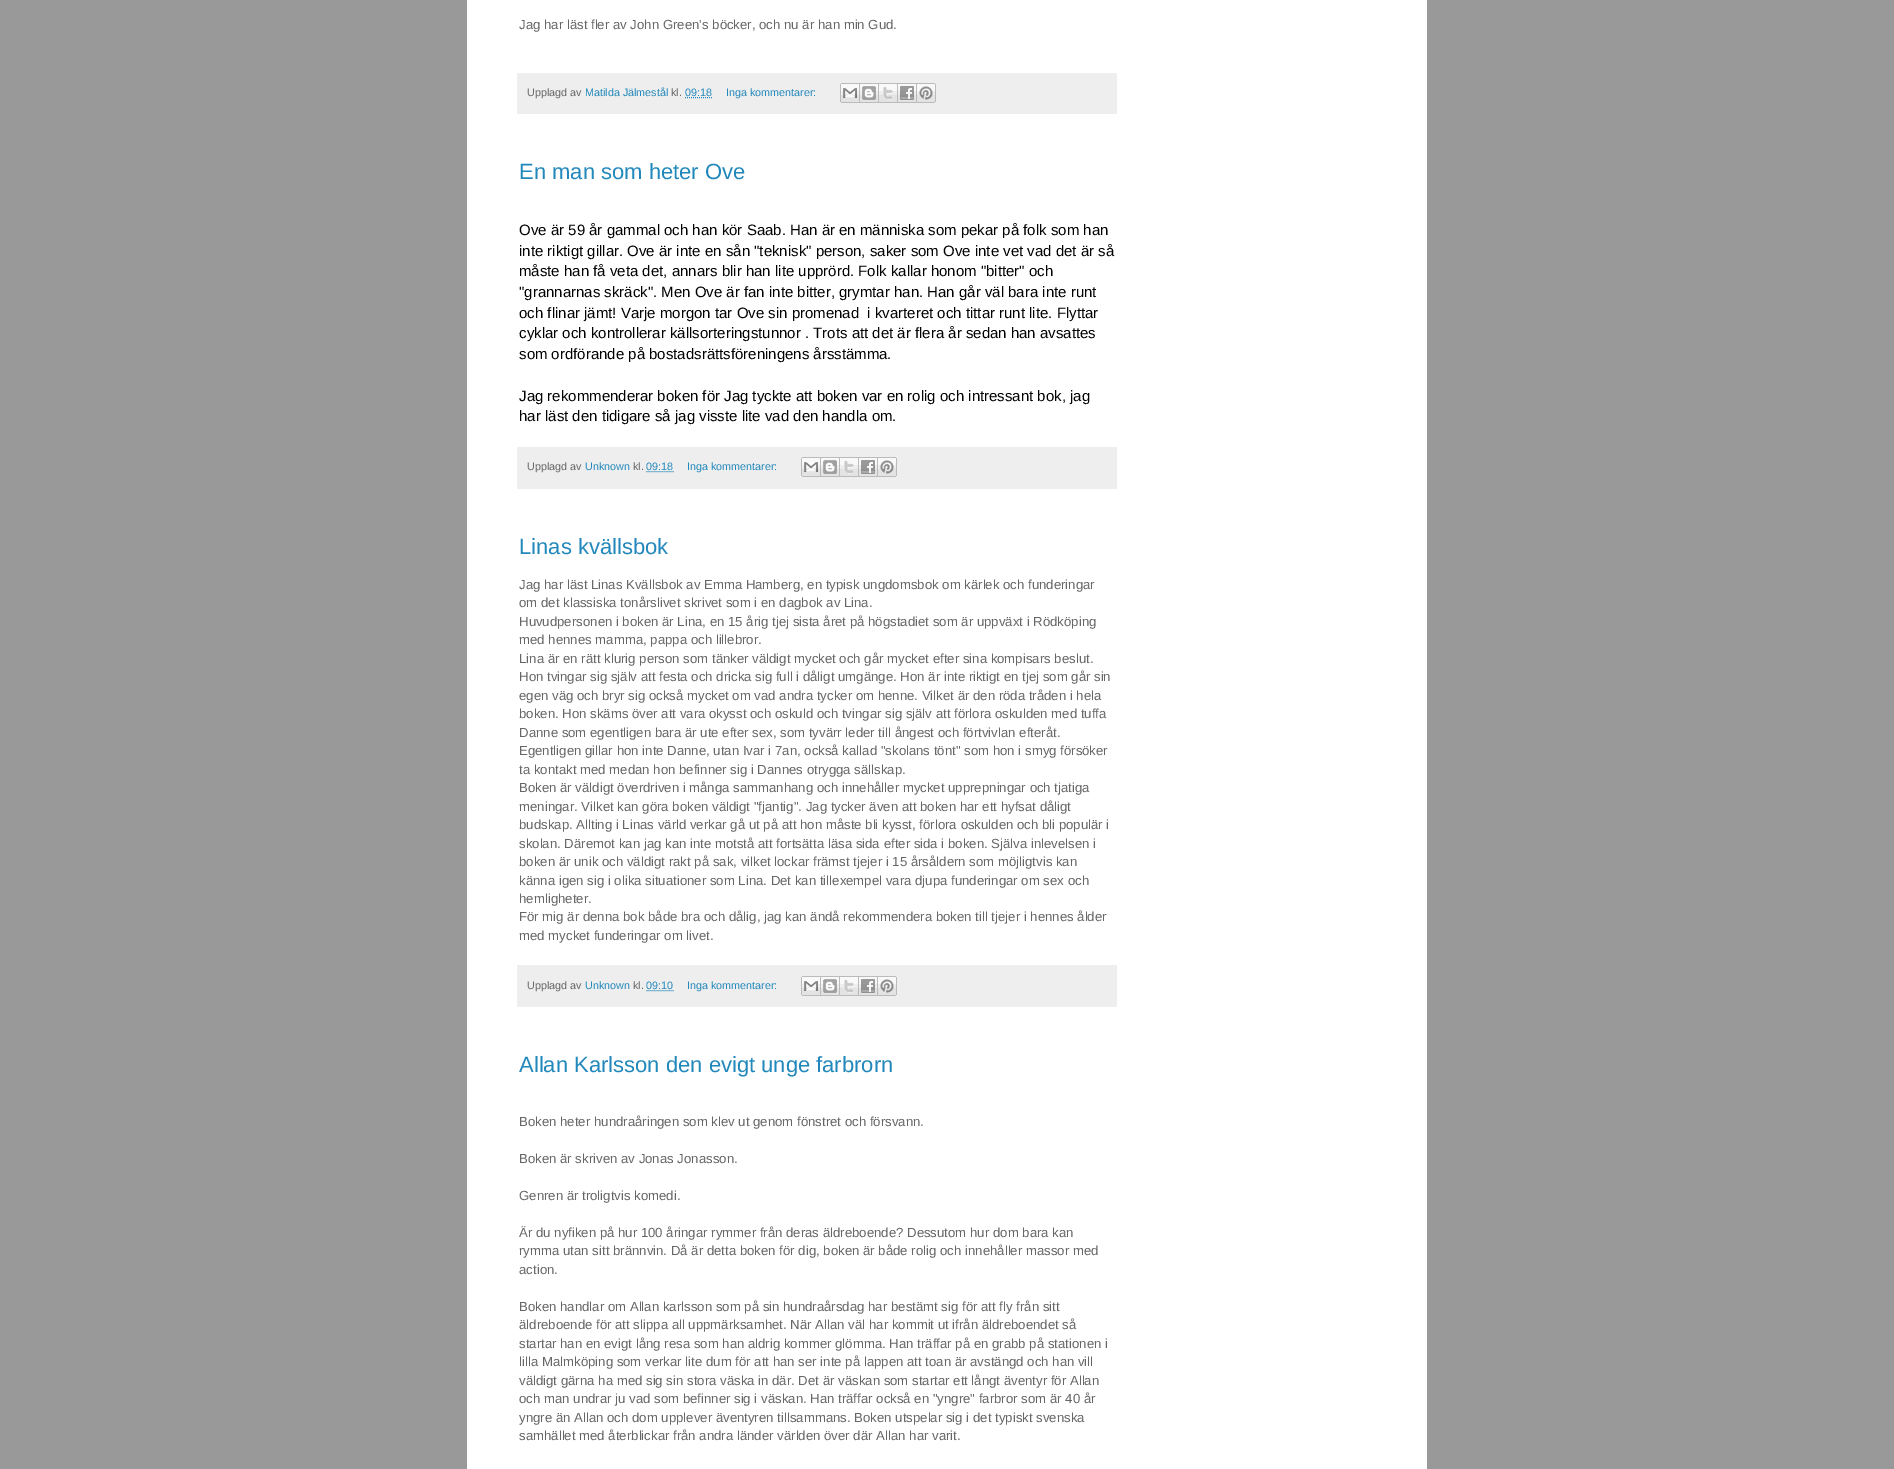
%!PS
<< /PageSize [1894 1469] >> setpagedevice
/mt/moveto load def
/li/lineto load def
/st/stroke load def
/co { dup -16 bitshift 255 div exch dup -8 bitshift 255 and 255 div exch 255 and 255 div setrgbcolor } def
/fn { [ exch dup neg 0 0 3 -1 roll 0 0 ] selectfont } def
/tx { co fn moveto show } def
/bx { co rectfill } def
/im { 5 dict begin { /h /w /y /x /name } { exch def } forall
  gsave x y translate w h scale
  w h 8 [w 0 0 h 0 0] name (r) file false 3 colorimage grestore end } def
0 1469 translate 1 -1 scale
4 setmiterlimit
0 0 1894 1469 16#999999 bx
467 0 960 1469 16#FFFFFF bx
517 73 600 41 16#EEEEEE bx
16#2288BB co
[1 1] 0 setdash
685 97.5 mt 712 97.5 li st
(media/1.raw) 840 83 20 20 im
(media/2.raw) 860 83 19 20 im
(media/3.raw) 879 83 19 20 im
(media/4.raw) 898 83 19 20 im
(media/5.raw) 917 83 19 20 im
517 447 600 42 16#EEEEEE bx
16#2288BB co
646.5 471.5 mt 673.5 471.5 li st
(media/1.raw) 801 457 20 20 im
(media/2.raw) 821 457 19 20 im
(media/3.raw) 840 457 19 20 im
(media/4.raw) 859 457 19 20 im
(media/5.raw) 878 457 19 20 im
517 965 600 42 16#EEEEEE bx
16#2288BB co
646.5 990.5 mt 673.5 990.5 li st
(media/1.raw) 801 976 20 20 im
(media/2.raw) 821 976 19 20 im
(media/3.raw) 840 976 19 20 im
(media/4.raw) 859 976 19 20 im
(media/5.raw) 878 976 19 20 im
(Jag har läst fler av John Green's böcker, och nu är han min Gud.) 519 29 /LiberationSans-Regular 13.2 16#666666 tx
(Upplagd av) 527 96 /LiberationSans-Regular 10.75 16#666666 tx
(Matilda Jälmestål) 585 96 /LiberationSans-Regular 10.75 16#2288BB tx
(kl.) 671 96 /LiberationSans-Regular 10.75 16#666666 tx
(09:18) 685 96 /LiberationSans-Regular 10.75 16#2288BB tx
(Inga kommentarer:) 726 96 /LiberationSans-Regular 10.75 16#2288BB tx
(En man som heter Ove) 519 179 /LiberationSans-Regular 22 16#2288BB tx
(Ove är 59 år gammal och han kör Saab. Han är en människa som pekar på folk som han) 519 235 /LiberationSans-Regular 15 16#000000 tx
(inte riktigt gillar. Ove är inte en sån "teknisk" person, saker som Ove inte vet vad det är så) 519 256 /LiberationSans-Regular 15 16#000000 tx
(måste han få veta det, annars blir han lite upprörd. Folk kallar honom "bitter" och) 519 276 /LiberationSans-Regular 15 16#000000 tx
("grannarnas skräck". Men Ove är fan inte bitter, grymtar han. Han går väl bara inte runt) 519 297 /LiberationSans-Regular 15 16#000000 tx
(och flinar jämt! Varje morgon tar Ove sin promenad  i kvarteret och tittar runt lite. Flyttar) 519 318 /LiberationSans-Regular 15 16#000000 tx
(cyklar och kontrollerar källsorteringstunnor . Trots att det är flera år sedan han avsattes) 519 338 /LiberationSans-Regular 15 16#000000 tx
(som ordförande på bostadsrättsföreningens årsstämma.) 519 359 /LiberationSans-Regular 15 16#000000 tx
(Jag rekommenderar boken för Jag tyckte att boken var en rolig och intressant bok, jag) 519 401 /LiberationSans-Regular 15 16#000000 tx
(har läst den tidigare så jag visste lite vad den handla om.) 519 421 /LiberationSans-Regular 15 16#000000 tx
(Upplagd av) 527 470 /LiberationSans-Regular 10.75 16#666666 tx
(Unknown) 585 470 /LiberationSans-Regular 10.75 16#2288BB tx
(kl.) 633 470 /LiberationSans-Regular 10.75 16#666666 tx
(09:18) 646 470 /LiberationSans-Regular 10.75 16#2288BB tx
(Inga kommentarer:) 687 470 /LiberationSans-Regular 10.75 16#2288BB tx
(Linas kvällsbok) 519 554 /LiberationSans-Regular 22 16#2288BB tx
(Jag har läst Linas Kvällsbok av Emma Hamberg, en typisk ungdomsbok om kärlek och funderingar) 519 589 /LiberationSans-Regular 13.2 16#666666 tx
(om det klassiska tonårslivet skrivet som i en dagbok av Lina.) 519 607 /LiberationSans-Regular 13.2 16#666666 tx
(Huvudpersonen i boken är Lina, en 15 årig tjej sista året på högstadiet som är uppväxt i Rödköping) 519 626 /LiberationSans-Regular 13.2 16#666666 tx
(med hennes mamma, pappa och lillebror.) 519 644 /LiberationSans-Regular 13.2 16#666666 tx
(Lina är en rätt klurig person som tänker väldigt mycket och går mycket efter sina kompisars beslut.) 519 663 /LiberationSans-Regular 13.2 16#666666 tx
(Hon tvingar sig själv att festa och dricka sig full i dåligt umgänge. Hon är inte riktigt en tjej som går sin) 519 681 /LiberationSans-Regular 13.2 16#666666 tx
(egen väg och bryr sig också mycket om vad andra tycker om henne. Vilket är den röda tråden i hela) 519 700 /LiberationSans-Regular 13.2 16#666666 tx
(boken. Hon skäms över att vara okysst och oskuld och tvingar sig själv att förlora oskulden med tuffa) 519 718 /LiberationSans-Regular 13.2 16#666666 tx
(Danne som egentligen bara är ute efter sex, som tyvärr leder till ångest och förtvivlan efteråt.) 519 737 /LiberationSans-Regular 13.2 16#666666 tx
(Egentligen gillar hon inte Danne, utan Ivar i 7an, också kallad "skolans tönt" som hon i smyg försöker) 519 755 /LiberationSans-Regular 13.2 16#666666 tx
(ta kontakt med medan hon befinner sig i Dannes otrygga sällskap.) 519 774 /LiberationSans-Regular 13.2 16#666666 tx
(Boken är väldigt överdriven i många sammanhang och innehåller mycket upprepningar och tjatiga) 519 792 /LiberationSans-Regular 13.2 16#666666 tx
(meningar. Vilket kan göra boken väldigt "fjantig". Jag tycker även att boken har ett hyfsat dåligt) 519 811 /LiberationSans-Regular 13.2 16#666666 tx
(budskap. Allting i Linas värld verkar gå ut på att hon måste bli kysst, förlora oskulden och bli populär i) 519 829 /LiberationSans-Regular 13.2 16#666666 tx
(skolan. Däremot kan jag kan inte motstå att fortsätta läsa sida efter sida i boken. Själva inlevelsen i) 519 848 /LiberationSans-Regular 13.2 16#666666 tx
(boken är unik och väldigt rakt på sak, vilket lockar främst tjejer i 15 årsåldern som möjligtvis kan) 519 866 /LiberationSans-Regular 13.2 16#666666 tx
(känna igen sig i olika situationer som Lina. Det kan tillexempel vara djupa funderingar om sex och) 519 885 /LiberationSans-Regular 13.2 16#666666 tx
(hemligheter.) 519 903 /LiberationSans-Regular 13.2 16#666666 tx
(För mig är denna bok både bra och dålig, jag kan ändå rekommendera boken till tjejer i hennes ålder) 519 921 /LiberationSans-Regular 13.2 16#666666 tx
(med mycket funderingar om livet.) 519 940 /LiberationSans-Regular 13.2 16#666666 tx
(Upplagd av) 527 989 /LiberationSans-Regular 10.75 16#666666 tx
(Unknown) 585 989 /LiberationSans-Regular 10.75 16#2288BB tx
(kl.) 633 989 /LiberationSans-Regular 10.75 16#666666 tx
(09:10) 646 989 /LiberationSans-Regular 10.75 16#2288BB tx
(Inga kommentarer:) 687 989 /LiberationSans-Regular 10.75 16#2288BB tx
(Allan Karlsson den evigt unge farbrorn) 519 1072 /LiberationSans-Regular 22 16#2288BB tx
(Boken heter hundraåringen som klev ut genom fönstret och försvann.) 519 1126 /LiberationSans-Regular 13.2 16#666666 tx
(Boken är skriven av Jonas Jonasson.) 519 1163 /LiberationSans-Regular 13.2 16#666666 tx
(Genren är troligtvis komedi.) 519 1200 /LiberationSans-Regular 13.2 16#666666 tx
(Är du nyfiken på hur 100 åringar rymmer från deras äldreboende? Dessutom hur dom bara kan) 519 1237 /LiberationSans-Regular 13.2 16#666666 tx
(rymma utan sitt brännvin. Då är detta boken för dig, boken är både rolig och innehåller massor med) 519 1255 /LiberationSans-Regular 13.2 16#666666 tx
(action.) 519 1274 /LiberationSans-Regular 13.2 16#666666 tx
(Boken handlar om Allan karlsson som på sin hundraårsdag har bestämt sig för att fly från sitt) 519 1311 /LiberationSans-Regular 13.2 16#666666 tx
(äldreboende för att slippa all uppmärksamhet. När Allan väl har kommit ut ifrån äldreboendet så) 519 1329 /LiberationSans-Regular 13.2 16#666666 tx
(startar han en evigt lång resa som han aldrig kommer glömma. Han träffar på en grabb på stationen i) 519 1348 /LiberationSans-Regular 13.2 16#666666 tx
(lilla Malmköping som verkar lite dum för att han ser inte på lappen att toan är avstängd och han vill) 519 1366 /LiberationSans-Regular 13.2 16#666666 tx
(väldigt gärna ha med sig sin stora väska in där. Det är väskan som startar ett långt äventyr för Allan) 519 1385 /LiberationSans-Regular 13.2 16#666666 tx
(och man undrar ju vad som befinner sig i väskan. Han träffar också en "yngre" farbror som är 40 år) 519 1403 /LiberationSans-Regular 13.2 16#666666 tx
(yngre än Allan och dom upplever äventyren tillsammans. Boken utspelar sig i det typiskt svenska) 519 1422 /LiberationSans-Regular 13.2 16#666666 tx
(samhället med återblickar från andra länder världen över där Allan har varit.) 519 1440 /LiberationSans-Regular 13.2 16#666666 tx
showpage
